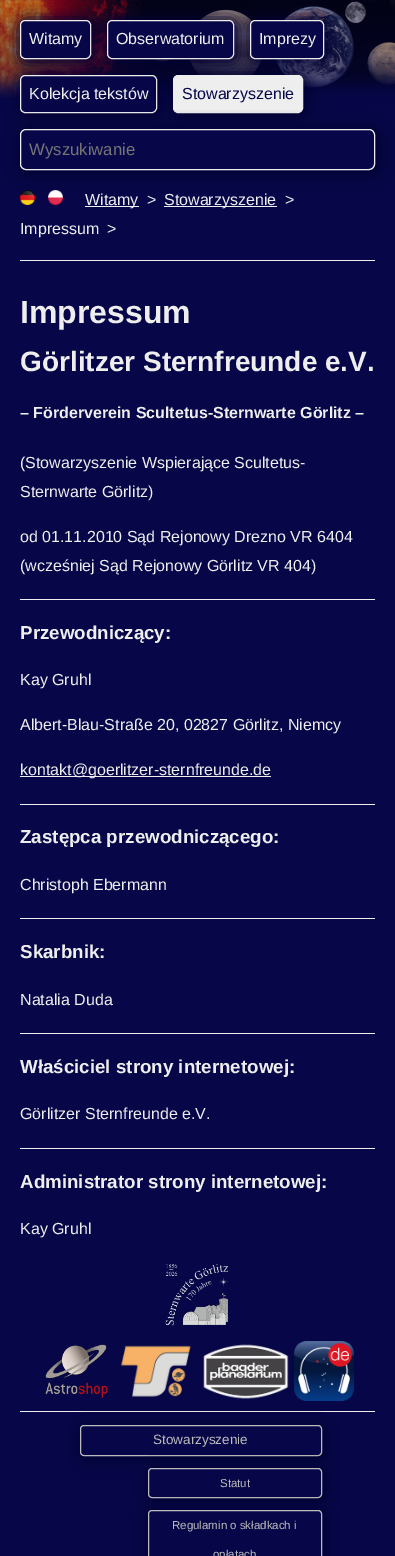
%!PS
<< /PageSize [395 1556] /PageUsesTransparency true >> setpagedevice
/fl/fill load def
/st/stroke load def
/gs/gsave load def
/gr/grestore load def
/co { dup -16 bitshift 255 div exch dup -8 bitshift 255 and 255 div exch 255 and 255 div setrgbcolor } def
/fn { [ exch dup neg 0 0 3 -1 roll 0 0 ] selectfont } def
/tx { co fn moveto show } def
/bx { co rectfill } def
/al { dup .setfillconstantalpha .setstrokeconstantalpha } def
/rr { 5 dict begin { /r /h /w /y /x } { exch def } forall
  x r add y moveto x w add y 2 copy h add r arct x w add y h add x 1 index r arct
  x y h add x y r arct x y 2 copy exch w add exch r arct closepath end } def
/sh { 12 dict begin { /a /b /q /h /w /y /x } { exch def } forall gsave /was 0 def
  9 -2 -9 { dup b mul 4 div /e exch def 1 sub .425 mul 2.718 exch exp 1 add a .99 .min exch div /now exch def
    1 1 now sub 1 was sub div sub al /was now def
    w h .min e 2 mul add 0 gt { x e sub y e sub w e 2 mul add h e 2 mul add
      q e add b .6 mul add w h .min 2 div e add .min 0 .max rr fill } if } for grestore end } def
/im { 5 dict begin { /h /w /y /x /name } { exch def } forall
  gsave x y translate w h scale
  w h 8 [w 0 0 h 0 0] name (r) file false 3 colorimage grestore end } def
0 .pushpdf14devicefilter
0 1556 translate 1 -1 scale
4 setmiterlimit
0 0 395 1556 16#060648 bx
(media/1.raw) 0 0 395 98 im
16#010135 co
18 18 79 47 9 7.5 1 sh
16#060648 co
20.5 20.5 70 38 4.5 rr gs fl gr
16#EEEEEE co
st
16#010135 co
105 18 135 47 9 7.5 1 sh
16#060648 co
107.5 20.5 126 38 4.5 rr gs fl gr
16#EEEEEE co
st
16#010135 co
248 18 82 47 9 7.5 1 sh
16#060648 co
250.5 20.5 73 38 4.5 rr gs fl gr
16#EEEEEE co
st
16#010135 co
18 73 145 46 9 7.5 1 sh
16#060648 co
20.5 75.5 136 37 4.5 rr gs fl gr
16#EEEEEE co
st
16#010135 co
171 73 138 46 9 7.5 1 sh
16#EEEEEE co
173.5 75.5 129 37 4.5 rr gs fl gr
st
16#010135 co
18 127 363 49 10 7.5 1 sh
16#060648 co
20.5 129.5 354 40 5.5 rr gs fl gr
16#EEEEEE co
st
(media/2.raw) 20 190 15 15 im
(media/3.raw) 48 190 15 15 im
85 206 54 1 16#EEEEEE bx
164 206 113 1 16#EEEEEE bx
20 260 355 1 16#EEEEEE bx
20 599 355 1 16#EEEEEE bx
20 776 251 1 16#EEEEEE bx
20 804 355 1 16#EEEEEE bx
20 918 355 1 16#EEEEEE bx
20 1033 355 1 16#EEEEEE bx
20 1148 355 1 16#EEEEEE bx
(media/4.raw) 165 1263 63 63 im
(media/5.raw) 45 1344 63 54 im
(media/6.raw) 121 1345 70 52 im
(media/7.raw) 203 1344 86 55 im
(media/8.raw) 294 1341 60 60 im
20 1411 355 1 16#EEEEEE bx
16#010135 co
79 1424 248 37 7 6 1 sh
16#060648 co
80.5 1425.5 241 30 3.5 rr gs fl gr
16#BBBBBB co
st
16#010135 co
147 1467 180 36 7 6 1 sh
16#060648 co
148.5 1468.5 173 29 3.5 rr gs fl gr
16#BBBBBB co
st
16#010135 co
147 1509 180 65 7 6 1 sh
16#060648 co
148.5 1510.5 173 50 3.5 rr gs fl gr
16#BBBBBB co
st
(Witamy) 29 44 /LiberationSans-Regular 16 16#EEEEEE tx
(Obserwatorium) 116 44 /LiberationSans-Regular 16 16#EEEEEE tx
(Imprezy) 259 44 /LiberationSans-Regular 16 16#EEEEEE tx
(Kolekcja tekstów) 29 99 /LiberationSans-Regular 16 16#EEEEEE tx
(Stowarzyszenie) 182 99 /LiberationSans-Regular 16 16#060648 tx
(Wyszukiwanie) 29 155 /LiberationSans-Regular 16.75 16#757575 tx
(Witamy) 85 205 /LiberationSans-Regular 16 16#EEEEEE tx
(>) 147 205 /LiberationSans-Regular 16 16#EEEEEE tx
(Stowarzyszenie) 164 205 /LiberationSans-Regular 16 16#EEEEEE tx
(>) 285 205 /LiberationSans-Regular 16 16#EEEEEE tx
(Impressum) 20 234 /LiberationSans-Regular 16 16#EEEEEE tx
(>) 107 234 /LiberationSans-Regular 16 16#EEEEEE tx
(Impressum) 20 323 /LiberationSans-Bold 32 16#EEEEEE tx
(Görlitzer Sternfreunde e.V.) 20 371 /LiberationSans-Bold 28 16#EEEEEE tx
(– Förderverein Scultetus-Sternwarte Görlitz –) 20 418 /LiberationSans-Bold 16 16#EEEEEE tx
(\(Stowarzyszenie Wspierające Scultetus-) 20 468 /LiberationSans-Regular 16 16#EEEEEE tx
(Sternwarte Görlitz\)) 20 497 /LiberationSans-Regular 16 16#EEEEEE tx
(od 01.11.2010 Sąd Rejonowy Drezno VR 6404) 20 542 /LiberationSans-Regular 16 16#EEEEEE tx
(\(wcześniej Sąd Rejonowy Görlitz VR 404\)) 20 571 /LiberationSans-Regular 16 16#EEEEEE tx
(Przewodniczący:) 20 639 /LiberationSans-Bold 18.75 16#EEEEEE tx
(Kay Gruhl) 20 685 /LiberationSans-Regular 16 16#EEEEEE tx
(Albert-Blau-Straße 20, 02827 Görlitz, Niemcy) 20 730 /LiberationSans-Regular 16 16#EEEEEE tx
(kontakt@goerlitzer-sternfreunde.de) 20 775 /LiberationSans-Regular 16 16#EEEEEE tx
(Zastępca przewodniczącego:) 20 843 /LiberationSans-Bold 18.75 16#EEEEEE tx
(Christoph Ebermann) 20 890 /LiberationSans-Regular 16 16#EEEEEE tx
(Skarbnik:) 20 958 /LiberationSans-Bold 18.75 16#EEEEEE tx
(Natalia Duda) 20 1005 /LiberationSans-Regular 16 16#EEEEEE tx
(Właściciel strony internetowej:) 20 1073 /LiberationSans-Bold 18.75 16#EEEEEE tx
(Görlitzer Sternfreunde e.V.) 20 1119 /LiberationSans-Regular 16 16#EEEEEE tx
(Administrator strony internetowej:) 20 1188 /LiberationSans-Bold 18.75 16#EEEEEE tx
(Kay Gruhl) 20 1234 /LiberationSans-Regular 16 16#EEEEEE tx
(Stowarzyszenie) 153 1444 /LiberationSans-Regular 13.5 16#BBBBBB tx
(Statut) 220 1487 /LiberationSans-Regular 11.5 16#BBBBBB tx
(Regulamin o składkach i) 172 1529 /LiberationSans-Regular 11.5 16#BBBBBB tx
(opłatach) 213 1558 /LiberationSans-Regular 11.5 16#BBBBBB tx
.poppdf14devicefilter showpage
